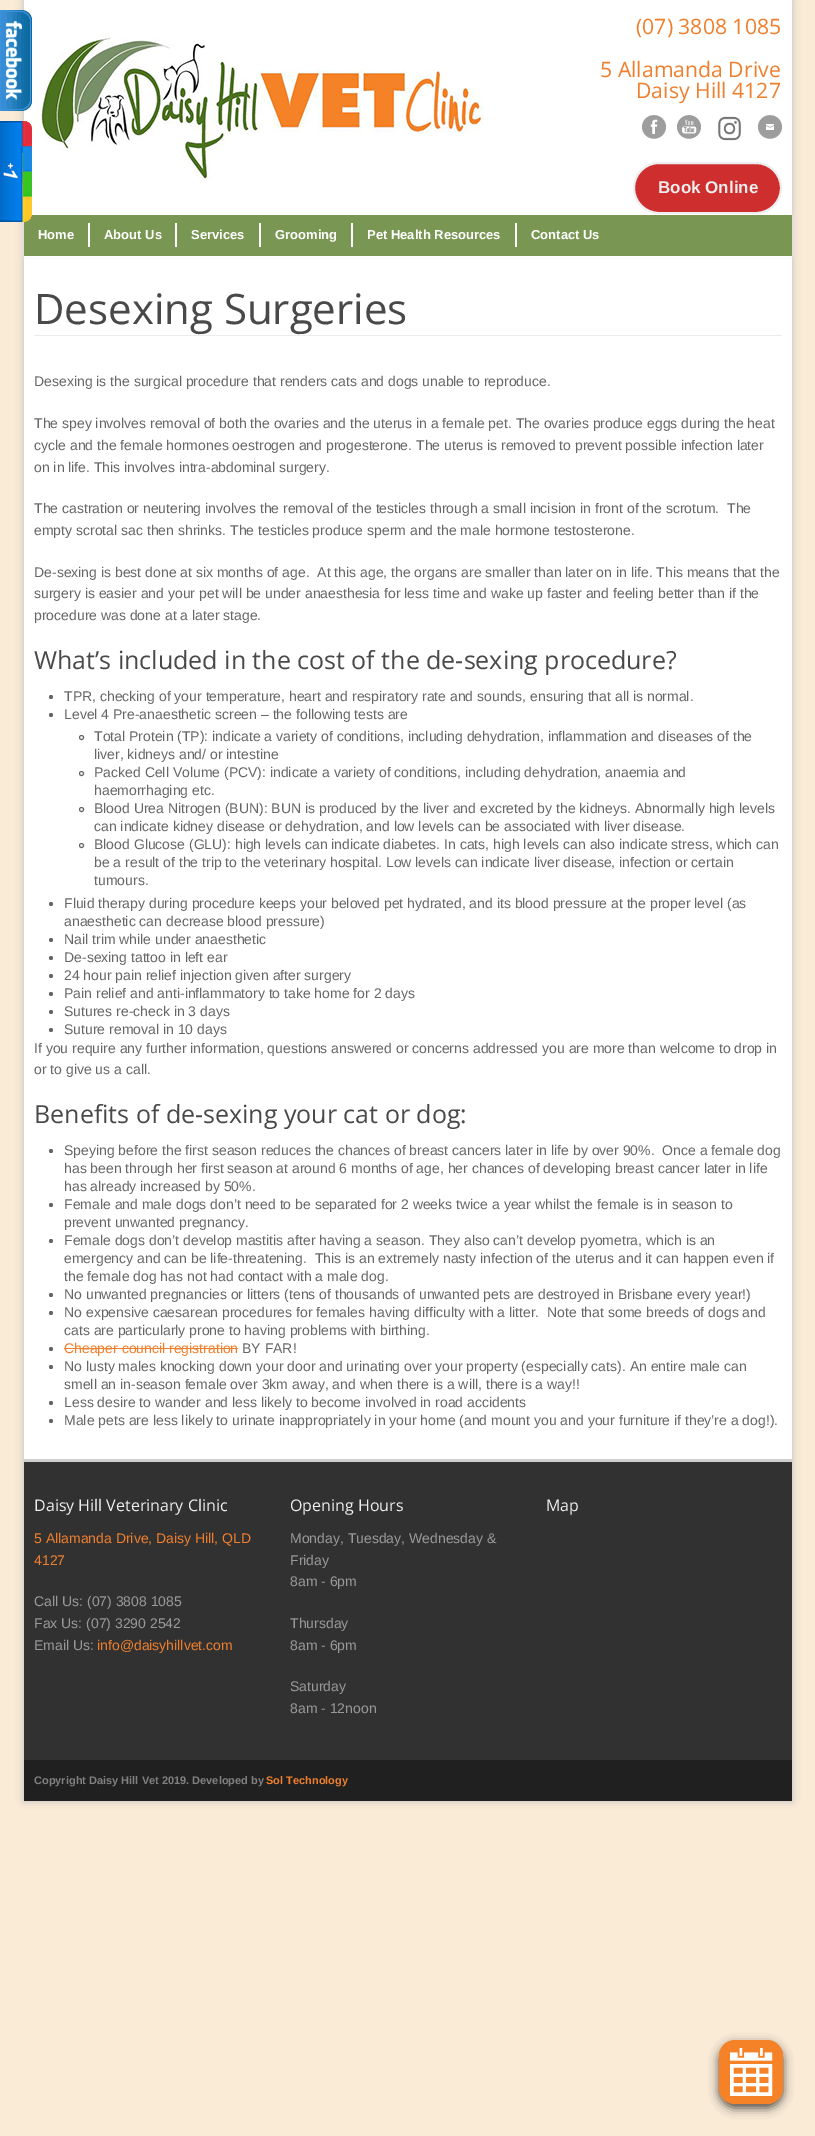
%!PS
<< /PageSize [815 2136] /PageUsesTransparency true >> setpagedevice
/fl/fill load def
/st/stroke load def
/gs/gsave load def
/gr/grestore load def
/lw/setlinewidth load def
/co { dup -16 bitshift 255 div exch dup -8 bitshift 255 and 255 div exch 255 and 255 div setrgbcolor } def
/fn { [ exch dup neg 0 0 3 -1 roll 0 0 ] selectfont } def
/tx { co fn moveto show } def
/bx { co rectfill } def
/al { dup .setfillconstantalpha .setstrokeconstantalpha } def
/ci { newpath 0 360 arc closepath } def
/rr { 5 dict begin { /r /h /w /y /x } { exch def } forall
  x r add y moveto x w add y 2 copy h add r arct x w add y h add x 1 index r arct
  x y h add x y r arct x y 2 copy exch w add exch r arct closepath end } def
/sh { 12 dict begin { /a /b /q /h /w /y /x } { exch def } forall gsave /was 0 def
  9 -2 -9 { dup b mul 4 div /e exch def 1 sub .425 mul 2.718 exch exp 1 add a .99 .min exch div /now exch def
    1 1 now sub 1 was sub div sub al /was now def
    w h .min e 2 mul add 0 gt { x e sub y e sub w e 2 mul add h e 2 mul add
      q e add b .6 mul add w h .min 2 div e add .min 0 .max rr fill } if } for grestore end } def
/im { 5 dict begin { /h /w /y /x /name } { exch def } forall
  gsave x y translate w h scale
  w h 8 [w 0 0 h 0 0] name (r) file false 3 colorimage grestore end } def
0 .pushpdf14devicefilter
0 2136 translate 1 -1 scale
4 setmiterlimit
0 0 815 2136 16#FAEBD7 bx
16#BBBBBB co
24 0 768 1801 0 4 1 sh
24 0 768 1459 16#FFFFFF bx
(media/1.raw) 0 10 32 101 im
(media/2.raw) 34 35 450 145 im
(media/3.raw) 642 115 24 24 im
(media/4.raw) 677 115 24 24 im
(media/5.raw) 718 116 23 25 im
(media/6.raw) 758 115 24 24 im
16#F5F5F5 co
25 216 766 41 0 2.5 1 sh
16#CF2E2E co
634 163 147 50 25 rr gs fl gr
16#EEEEEE co
2 lw
st
24 215 768 41 16#799652 bx
24 214 768 1 16#FFFFFF bx
24 256 768 1 16#FFFFFF bx
88 223 2 24 16#FFFFFF bx
175 223 2 24 16#FFFFFF bx
259 223 2 24 16#FFFFFF bx
351 223 2 24 16#FFFFFF bx
515 223 2 24 16#FFFFFF bx
34 335 748 1 16#ECECEC bx
16#666666 co
51 697 2 ci fl
51 715 2 ci fl
1 lw
81.5 737.5 2 ci st
81.5 773.5 2 ci st
81.5 809.5 2 ci st
81.5 845.5 2 ci st
51 904 2 ci fl
51 940 2 ci fl
51 958 2 ci fl
51 976 2 ci fl
51 994 2 ci fl
51 1012 2 ci fl
51 1030 2 ci fl
51 1151 2 ci fl
51 1205 2 ci fl
51 1241 2 ci fl
51 1295 2 ci fl
51 1313 2 ci fl
51 1349 2 ci fl
64 1348 174 1 16#EF7F2C bx
16#666666 co
51 1367 2 ci fl
51 1403 2 ci fl
51 1421 2 ci fl
24 1462 768 298 16#313131 bx
24 1459 768 3 16#CFCFCF bx
24 1760 768 41 16#202020 bx
(media/7.raw) 0 121 32 101 im
16#000000 co
719 2044 64 64 16 5 .7 sh
16#F58227 co
719 2040 64 64 16 rr fl
(media/8.raw) 730 2048 43 48 im
(\(07\) 3808 1085) 636 34 /OpenSans-Regular 21.25 16#EF7F2C tx
(5 Allamanda Drive) 600 77 /OpenSans-Regular 21.25 16#EF7F2C tx
(Daisy Hill 4127) 636 98 /OpenSans-Regular 21.25 16#EF7F2C tx
(Book Online) 658 193 /LiberationSans-Bold 17 16#EEEEEE tx
(Home) 38 239 /LiberationSans-Bold 13 16#FFFFFF tx
(About Us) 104 239 /LiberationSans-Bold 13 16#FFFFFF tx
(Services) 191 239 /LiberationSans-Bold 13 16#FFFFFF tx
(Grooming) 275 239 /LiberationSans-Bold 13 16#FFFFFF tx
(Pet Health Resources) 367 239 /LiberationSans-Bold 13 16#FFFFFF tx
(Contact Us) 531 239 /LiberationSans-Bold 13 16#FFFFFF tx
(Desexing Surgeries) 34 324 /OpenSans-Regular 42 16#494949 tx
(Desexing is the surgical procedure that renders cats and dogs unable to reproduce.) 34 386 /LiberationSans-Regular 14 16#666666 tx
(The spey involves removal of both the ovaries and the uterus in a female pet. The ovaries produce eggs during the heat) 34 428 /LiberationSans-Regular 14 16#666666 tx
(cycle and the female hormones oestrogen and progesterone. The uterus is removed to prevent possible infection later) 34 450 /LiberationSans-Regular 14 16#666666 tx
(on in life. This involves intra-abdominal surgery.) 34 472 /LiberationSans-Regular 14 16#666666 tx
(The castration or neutering involves the removal of the testicles through a small incision in front of the scrotum.  The) 34 513 /LiberationSans-Regular 14 16#666666 tx
(empty scrotal sac then shrinks. The testicles produce sperm and the male hormone testosterone.) 34 535 /LiberationSans-Regular 14 16#666666 tx
(De-sexing is best done at six months of age.  At this age, the organs are smaller than later on in life. This means that the) 34 577 /LiberationSans-Regular 14 16#666666 tx
(surgery is easier and your pet will be under anaesthesia for less time and wake up faster and feeling better than if the) 34 598 /LiberationSans-Regular 14 16#666666 tx
(procedure was done at a later stage.) 34 620 /LiberationSans-Regular 14 16#666666 tx
(What’s included in the cost of the de-sexing procedure?) 34 669 /OpenSans-Regular 25 16#494949 tx
(TPR, checking of your temperature, heart and respiratory rate and sounds, ensuring that all is normal.) 64 701 /LiberationSans-Regular 14 16#666666 tx
(Level 4 Pre-anaesthetic screen – the following tests are) 64 719 /LiberationSans-Regular 14 16#666666 tx
(Total Protein \(TP\): indicate a variety of conditions, including dehydration, inflammation and diseases of the) 94 741 /LiberationSans-Regular 14 16#666666 tx
(liver, kidneys and/ or intestine) 94 759 /LiberationSans-Regular 14 16#666666 tx
(Packed Cell Volume \(PCV\): indicate a variety of conditions, including dehydration, anaemia and) 94 777 /LiberationSans-Regular 14 16#666666 tx
(haemorrhaging etc.) 94 795 /LiberationSans-Regular 14 16#666666 tx
(Blood Urea Nitrogen \(BUN\): BUN is produced by the liver and excreted by the kidneys. Abnormally high levels) 94 813 /LiberationSans-Regular 14 16#666666 tx
(can indicate kidney disease or dehydration, and low levels can be associated with liver disease.) 94 831 /LiberationSans-Regular 14 16#666666 tx
(Blood Glucose \(GLU\): high levels can indicate diabetes. In cats, high levels can also indicate stress, which can) 94 849 /LiberationSans-Regular 14 16#666666 tx
(be a result of the trip to the veterinary hospital. Low levels can indicate liver disease, infection or certain) 94 867 /LiberationSans-Regular 14 16#666666 tx
(tumours.) 94 885 /LiberationSans-Regular 14 16#666666 tx
(Fluid therapy during procedure keeps your beloved pet hydrated, and its blood pressure at the proper level \(as) 64 908 /LiberationSans-Regular 14 16#666666 tx
(anaesthetic can decrease blood pressure\)) 64 926 /LiberationSans-Regular 14 16#666666 tx
(Nail trim while under anaesthetic) 64 944 /LiberationSans-Regular 14 16#666666 tx
(De-sexing tattoo in left ear) 64 962 /LiberationSans-Regular 14 16#666666 tx
(24 hour pain relief injection given after surgery) 64 980 /LiberationSans-Regular 14 16#666666 tx
(Pain relief and anti-inflammatory to take home for 2 days) 64 998 /LiberationSans-Regular 14 16#666666 tx
(Sutures re-check in 3 days) 64 1016 /LiberationSans-Regular 14 16#666666 tx
(Suture removal in 10 days) 64 1034 /LiberationSans-Regular 14 16#666666 tx
(If you require any further information, questions answered or concerns addressed you are more than welcome to drop in) 34 1053 /LiberationSans-Regular 14 16#666666 tx
(or to give us a call.) 34 1074 /LiberationSans-Regular 14 16#666666 tx
(Benefits of de-sexing your cat or dog:) 34 1123 /OpenSans-Regular 25 16#494949 tx
(Speying before the first season reduces the chances of breast cancers later in life by over 90%.  Once a female dog) 64 1155 /LiberationSans-Regular 14 16#666666 tx
(has been through her first season at around 6 months of age, her chances of developing breast cancer later in life) 64 1173 /LiberationSans-Regular 14 16#666666 tx
(has already increased by 50%.) 64 1191 /LiberationSans-Regular 14 16#666666 tx
(Female and male dogs don’t need to be separated for 2 weeks twice a year whilst the female is in season to) 64 1209 /LiberationSans-Regular 14 16#666666 tx
(prevent unwanted pregnancy.) 64 1227 /LiberationSans-Regular 14 16#666666 tx
(Female dogs don’t develop mastitis after having a season. They also can’t develop pyometra, which is an) 64 1245 /LiberationSans-Regular 14 16#666666 tx
(emergency and can be life-threatening.  This is an extremely nasty infection of the uterus and it can happen even if) 64 1263 /LiberationSans-Regular 14 16#666666 tx
(the female dog has not had contact with a male dog.) 64 1281 /LiberationSans-Regular 14 16#666666 tx
(No unwanted pregnancies or litters \(tens of thousands of unwanted pets are destroyed in Brisbane every year!\)) 64 1299 /LiberationSans-Regular 14 16#666666 tx
(No expensive caesarean procedures for females having difficulty with a litter.  Note that some breeds of dogs and) 64 1317 /LiberationSans-Regular 14 16#666666 tx
(cats are particularly prone to having problems with birthing.) 64 1335 /LiberationSans-Regular 14 16#666666 tx
(Cheaper council registration) 64 1353 /LiberationSans-Regular 14 16#EF7F2C tx
(BY FAR!) 242 1353 /LiberationSans-Regular 14 16#666666 tx
(No lusty males knocking down your door and urinating over your property \(especially cats\). An entire male can) 64 1371 /LiberationSans-Regular 14 16#666666 tx
(smell an in-season female over 3km away, and when there is a will, there is a way!!) 64 1389 /LiberationSans-Regular 14 16#666666 tx
(Less desire to wander and less likely to become involved in road accidents) 64 1407 /LiberationSans-Regular 14 16#666666 tx
(Male pets are less likely to urinate inappropriately in your home \(and mount you and your furniture if they’re a dog!\).) 64 1425 /LiberationSans-Regular 14 16#666666 tx
(Daisy Hill Veterinary Clinic) 34 1511 /OpenSans-Regular 16 16#EEEEEE tx
(5 Allamanda Drive, Daisy Hill, QLD) 34 1543 /LiberationSans-Regular 14 16#EF7F2C tx
(4127) 34 1565 /LiberationSans-Regular 14 16#EF7F2C tx
(Call Us: \(07\) 3808 1085) 34 1606 /LiberationSans-Regular 14 16#999999 tx
(Fax Us: \(07\) 3290 2542) 34 1628 /LiberationSans-Regular 14 16#999999 tx
(Email Us:) 34 1650 /LiberationSans-Regular 14 16#999999 tx
(info@daisyhillvet.com) 97 1650 /LiberationSans-Regular 14 16#EF7F2C tx
(Opening Hours) 290 1511 /OpenSans-Regular 16 16#EEEEEE tx
(Monday, Tuesday, Wednesday &) 290 1543 /LiberationSans-Regular 14 16#999999 tx
(Friday) 290 1565 /LiberationSans-Regular 14 16#999999 tx
(8am - 6pm) 290 1586 /LiberationSans-Regular 14 16#999999 tx
(Thursday) 290 1628 /LiberationSans-Regular 14 16#999999 tx
(8am - 6pm) 290 1650 /LiberationSans-Regular 14 16#999999 tx
(Saturday) 290 1691 /LiberationSans-Regular 14 16#999999 tx
(8am - 12noon) 290 1713 /LiberationSans-Regular 14 16#999999 tx
(Map) 546 1511 /OpenSans-Regular 16 16#EEEEEE tx
(Copyright Daisy Hill Vet 2019. Developed by) 34 1784 /LiberationSans-Bold 11 16#808080 tx
(Sol Technology) 266 1784 /LiberationSans-Bold 11 16#EF7F2C tx
.poppdf14devicefilter showpage
